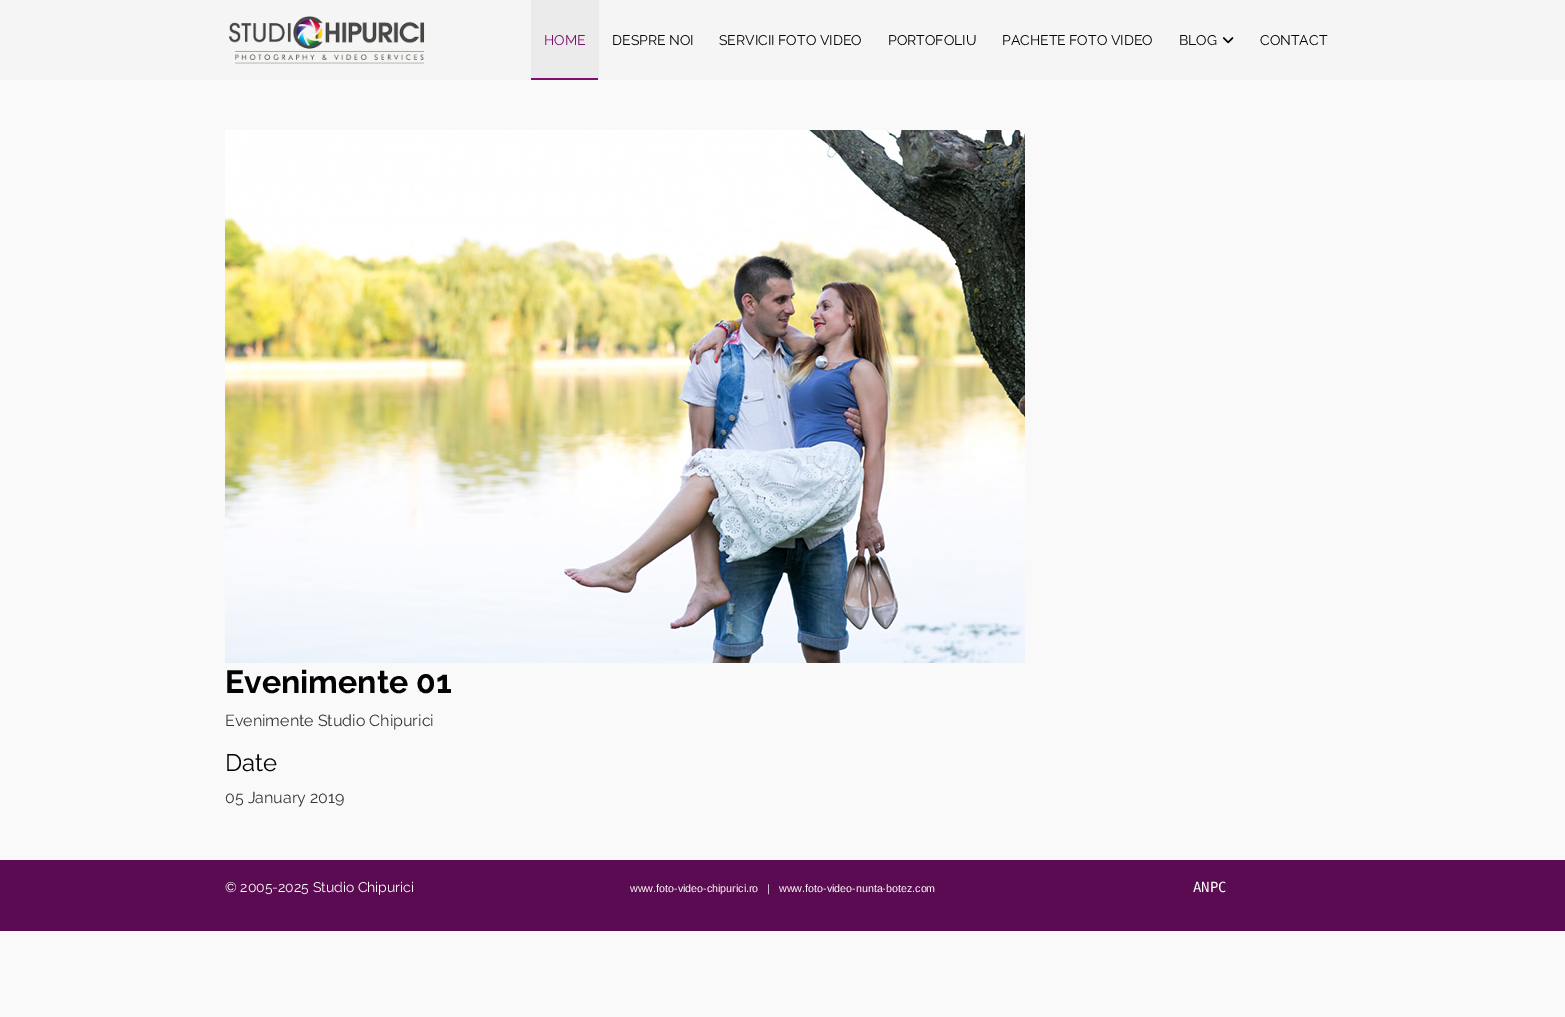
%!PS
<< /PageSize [1565 1017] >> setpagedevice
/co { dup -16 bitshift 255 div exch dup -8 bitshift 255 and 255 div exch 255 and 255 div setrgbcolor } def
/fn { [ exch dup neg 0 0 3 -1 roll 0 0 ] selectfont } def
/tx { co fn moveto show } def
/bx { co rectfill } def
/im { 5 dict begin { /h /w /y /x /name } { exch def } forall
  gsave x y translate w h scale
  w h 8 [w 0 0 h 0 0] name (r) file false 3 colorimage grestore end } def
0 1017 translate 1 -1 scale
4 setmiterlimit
0 0 1565 1017 16#F9F9F9 bx
0 0 1565 80 16#F5F5F5 bx
(media/1.raw) 229 16 196 48 im
531 0 68 80 16#EBEBEB bx
531 78 67 2 16#7E1071 bx
(media/2.raw) 1223 37 11 7 im
(media/3.raw) 225 130 800 533 im
0 860 1565 71 16#5A0B51 bx
(HOME) 544 45 /Raleway-Regular 14 16#7E1071 tx
(DESPRE NOI) 612 45 /Raleway-Regular 14 16#030303 tx
(SERVICII FOTO VIDEO) 719 45 /Raleway-Regular 14 16#030303 tx
(PORTOFOLIU) 888 45 /Raleway-Regular 14 16#030303 tx
(PACHETE FOTO VIDEO) 1002 45 /Raleway-Regular 14 16#030303 tx
(BLOG) 1179 45 /Raleway-Regular 14 16#030303 tx
(CONTACT) 1260 45 /Raleway-Regular 14 16#030303 tx
(Evenimente 01) 225 693 /Raleway-Bold 32 16#030303 tx
(Evenimente Studio Chipurici) 225 726 /Raleway-Regular 16 16#363636 tx
(Date) 225 771 /Raleway-Regular 24 16#030303 tx
(05 January 2019) 225 803 /Raleway-Regular 16 16#363636 tx
(© 2005-2025 Studio Chipurici) 225 892 /Raleway-Regular 14 16#FFFFFF tx
(www.foto-video-chipurici.ro) 630 892 /LiberationSans-Regular 10.7 16#FFFFFF tx
(|) 767 892 /LiberationSans-Regular 10.7 16#FFFFFF tx
(www.foto-video-nunta-botez.com) 779 892 /LiberationSans-Regular 10.7 16#FFFFFF tx
(ANPC) 1193 892 /DejaVuSansMono-Regular 14 16#FFFFFF tx
showpage
